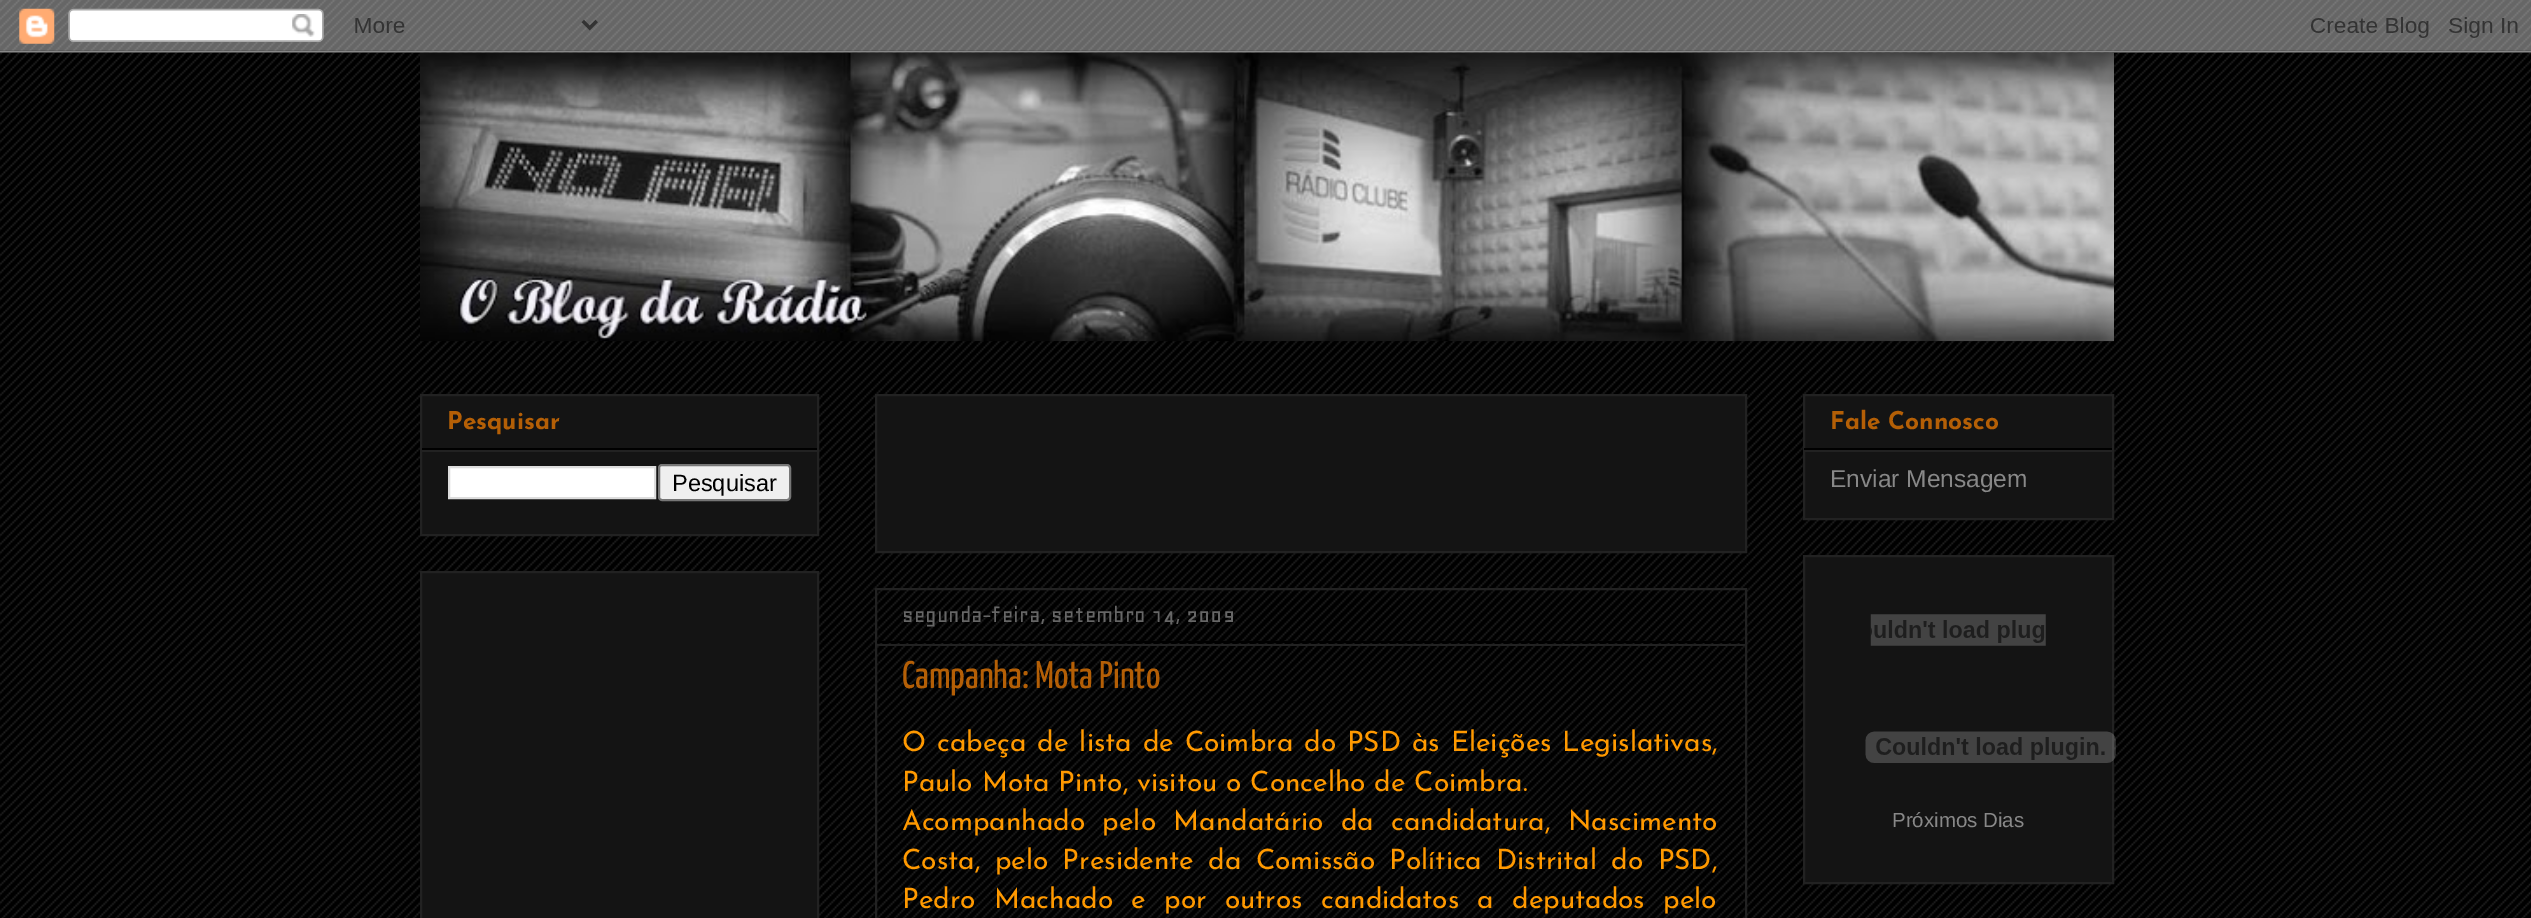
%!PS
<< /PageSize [2531 918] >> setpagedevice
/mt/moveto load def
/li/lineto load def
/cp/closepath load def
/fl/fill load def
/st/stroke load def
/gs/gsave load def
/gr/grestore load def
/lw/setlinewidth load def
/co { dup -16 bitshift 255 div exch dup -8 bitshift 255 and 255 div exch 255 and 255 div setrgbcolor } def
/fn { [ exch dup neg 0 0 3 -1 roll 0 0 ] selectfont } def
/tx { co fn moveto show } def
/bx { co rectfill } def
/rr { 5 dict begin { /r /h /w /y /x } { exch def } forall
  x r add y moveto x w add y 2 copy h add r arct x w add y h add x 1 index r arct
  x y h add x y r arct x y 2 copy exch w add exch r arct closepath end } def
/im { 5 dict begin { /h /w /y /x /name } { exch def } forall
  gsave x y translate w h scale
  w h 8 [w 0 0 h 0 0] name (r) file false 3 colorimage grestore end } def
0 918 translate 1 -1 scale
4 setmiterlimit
0 0 2531 918 16#000000 bx
(media/1.raw) 0 0 2531 918 im
(media/3.raw) 420 52 1694 290 im
(media/2.raw) 0 0 2531 53 im
16#141414 co
421 395 mt 818 395 li 818 535 li 421 535 li cp gs fl gr
16#222222 co
2 lw
st
422 448 395 2 16#000000 bx
422 450 395 2 16#222222 bx
16#FFFFFF co
449 467 mt 655 467 li 655 498 li 449 498 li cp gs fl gr
16#DDDDDD co
st
16#EFEFEF co
659 465 131 35 3 rr gs fl gr
16#767676 co
st
16#141414 co
421 572 mt 818 572 li 818 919 li 421 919 li cp gs fl gr
16#222222 co
st
16#141414 co
1804 395 mt 2113 395 li 2113 519 li 1804 519 li cp gs fl gr
16#222222 co
st
1804 448 308 2 16#000000 bx
1804 450 308 2 16#222222 bx
16#141414 co
1804 556 mt 2113 556 li 2113 883 li 1804 883 li cp gs fl gr
16#222222 co
st
(media/4.raw) 1870 614 176 32 im
(media/5.raw) 1865 731 251 32 im
16#141414 co
876 395 mt 1746 395 li 1746 552 li 876 552 li cp gs fl gr
16#222222 co
st
876 589 870 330 rectstroke
877 641 868 2 16#000000 bx
877 644 868 2 16#222222 bx
(Pesquisar) 447 429 /JosefinSans-Bold 24.5 16#B45F06 tx
(Pesquisar) 672 491 /LiberationSans-Regular 23.5 16#000000 tx
(Fale Connosco) 1830 429 /JosefinSans-Bold 24.5 16#B45F06 tx
(Enviar Mensagem) 1830 487 /LiberationSans-Regular 24.5 16#888888 tx
(Próximos Dias) 1892 827 /LiberationSans-Regular 20.5 16#888888 tx
(segunda-feira, setembro 14, 2009) 902 622 /Geo-Regular 24.5 16#666666 tx
(Campanha: Mota Pinto) 902 688 /YanoneKaffeesatz-ExtraLight 38.5 16#B45F06 tx
/JosefinSans-Regular 28 fn
16#FF9900 co
902 751 mt 2.1 0 32 (O cabeça de lista de Coimbra do PSD às Eleições Legislativas,) widthshow
(Paulo Mota Pinto, visitou o Concelho de Coimbra.) 902 791 /JosefinSans-Regular 28 16#FF9900 tx
902 830 mt 8.5 0 32 (Acompanhado pelo Mandatário da candidatura, Nascimento) widthshow
902 869 mt 5.5 0 32 (Costa, pelo Presidente da Comissão Política Distrital do PSD,) widthshow
902 908 mt 9.5 0 32 (Pedro Machado e por outros candidatos a deputados pelo) widthshow
showpage
